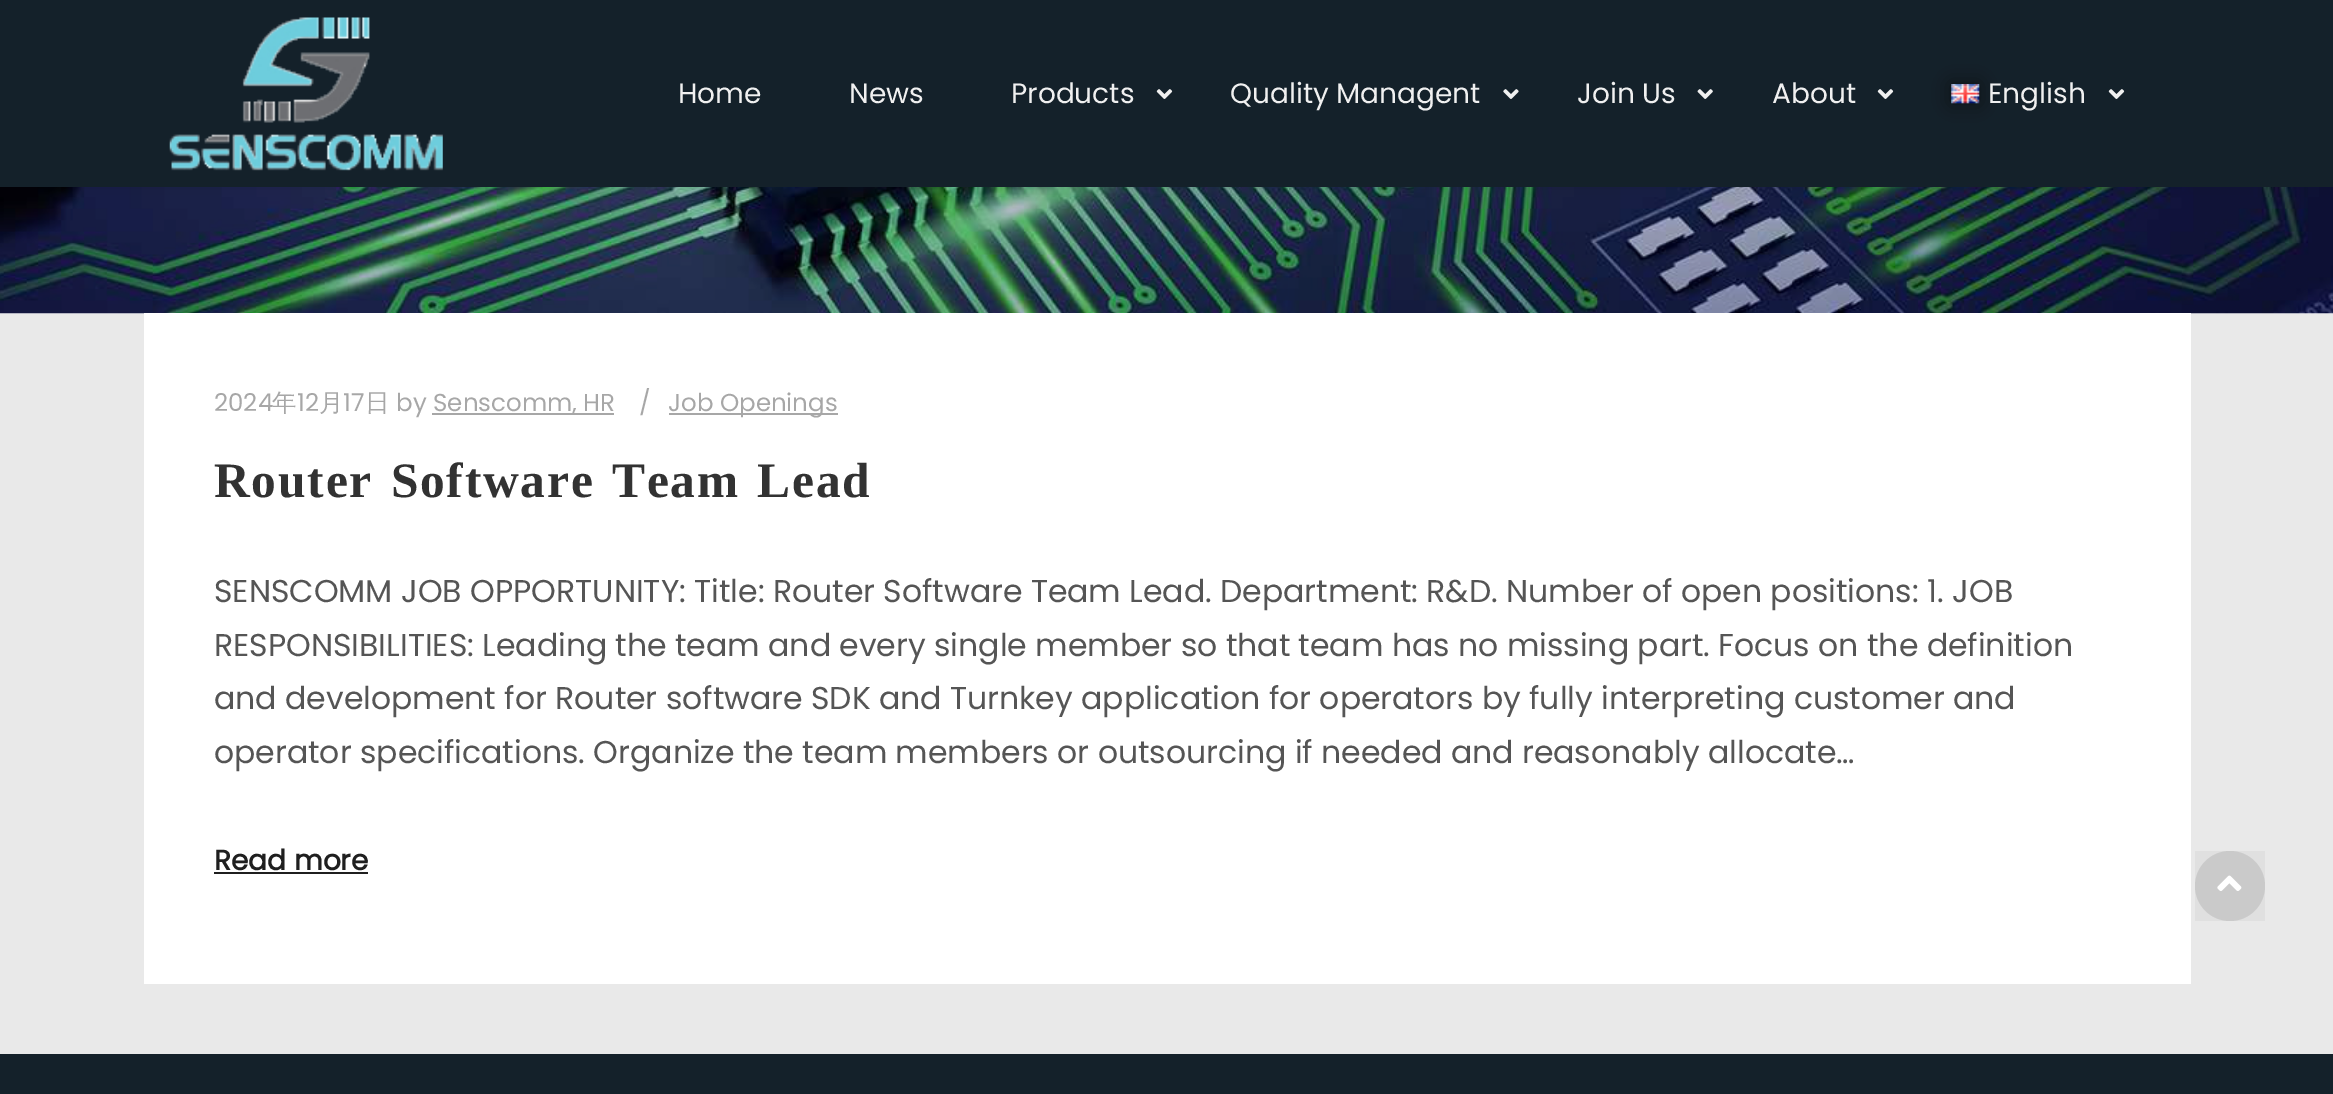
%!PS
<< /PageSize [2333 1094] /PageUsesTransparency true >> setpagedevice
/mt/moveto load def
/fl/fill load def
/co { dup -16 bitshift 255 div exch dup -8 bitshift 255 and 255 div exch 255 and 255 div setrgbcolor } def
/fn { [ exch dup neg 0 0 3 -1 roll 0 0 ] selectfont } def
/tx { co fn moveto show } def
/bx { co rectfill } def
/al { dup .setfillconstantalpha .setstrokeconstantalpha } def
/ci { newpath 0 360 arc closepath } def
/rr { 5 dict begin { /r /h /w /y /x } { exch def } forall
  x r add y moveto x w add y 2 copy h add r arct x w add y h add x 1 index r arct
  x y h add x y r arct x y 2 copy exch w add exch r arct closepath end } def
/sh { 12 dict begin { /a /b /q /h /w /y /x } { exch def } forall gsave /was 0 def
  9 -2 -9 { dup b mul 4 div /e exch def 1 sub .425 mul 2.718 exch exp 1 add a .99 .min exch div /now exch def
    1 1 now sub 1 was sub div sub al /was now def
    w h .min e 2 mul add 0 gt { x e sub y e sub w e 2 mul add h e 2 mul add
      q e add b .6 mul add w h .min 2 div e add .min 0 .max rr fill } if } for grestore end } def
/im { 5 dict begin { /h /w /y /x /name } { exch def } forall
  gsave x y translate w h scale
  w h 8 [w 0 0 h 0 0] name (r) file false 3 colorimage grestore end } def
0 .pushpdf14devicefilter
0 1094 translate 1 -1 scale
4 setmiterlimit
0 0 2333 1094 16#E9E9E9 bx
(media/6.raw) 0 187 2333 127 im
16#000000 co
0 0 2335 187 0 10.5 .09 sh
0 0 2333 187 16#14212A bx
(media/1.raw) 169 17 274 154 im
(media/2.raw) 1156 89 17 10 im
(media/3.raw) 1503 89 16 10 im
(media/4.raw) 1697 89 16 10 im
(media/2.raw) 1877 89 17 10 im
16#000000 co
1951 84 28 19 0 9 .5 sh
(media/5.raw) 1951 84 29 20 im
(media/2.raw) 2108 89 17 10 im
144 313 2047 671 16#FFFFFF bx
432 413 182 2 16#A7A7A7 bx
669 413 169 2 16#A7A7A7 bx
214 872 154 2 16#1F1F1F bx
16#D2D2D2 co
2230 886 35 ci fl
0.04 al
2195 851 70 70 16#000000 bx
1 al
(media/7.raw) 2217 875 25 16 im
0 1054 2333 40 16#14212A bx
(Home) 678 103 /Poppins-Regular 28 16#F0F0F0 tx
(News) 849 103 /Poppins-Regular 28 16#F0F0F0 tx
(Products) 1011 103 /Poppins-Regular 28 16#F0F0F0 tx
(Quality Managent) 1230 103 /Poppins-Regular 28 16#F0F0F0 tx
(Join Us) 1577 103 /Poppins-Regular 28 16#F0F0F0 tx
(About) 1772 103 /Poppins-Regular 28 16#F0F0F0 tx
(English) 1988 103 /Poppins-Regular 28 16#F0F0F0 tx
(2024) 214 411 /Poppins-Regular 24.5 16#A7A7A7 tx
(年) 272 411 /WenQuanYiZenHei-Medium 24.5 16#A7A7A7 tx
(12) 297 411 /Poppins-Regular 24.5 16#A7A7A7 tx
(月) 319 411 /WenQuanYiZenHei-Medium 24.5 16#A7A7A7 tx
(17) 343 411 /Poppins-Regular 24.5 16#A7A7A7 tx
(日) 365 411 /WenQuanYiZenHei-Medium 24.5 16#A7A7A7 tx
(by) 396 411 /Poppins-Regular 24.5 16#A7A7A7 tx
(Senscomm, HR) 433 411 /Poppins-Regular 24.5 16#A7A7A7 tx
(/) 639 411 /Poppins-Regular 24.5 16#A7A7A7 tx
(Job Openings) 668 411 /Poppins-Regular 24.5 16#A7A7A7 tx
/LiberationSerif-Bold 49.5 fn
16#323232 co
214 497 mt 3.5 0 32 1.75 0 (Router Software Team Lead) awidthshow
(SENSCOMM JOB OPPORTUNITY: Title: Router Software Team Lead. Department: R&D. Number of open positions: 1. JOB) 214 602 /Poppins-Regular 31.5 16#555555 tx
(RESPONSIBILITIES: Leading the team and every single member so that team has no missing part. Focus on the definition) 214 656 /Poppins-Regular 31.5 16#555555 tx
(and development for Router software SDK and Turnkey application for operators by fully interpreting customer and) 214 709 /Poppins-Regular 31.5 16#555555 tx
(operator specifications. Organize the team members or outsourcing if needed and reasonably allocate…) 214 763 /Poppins-Regular 31.5 16#555555 tx
(Read more) 214 870 /Poppins-Bold 28 16#1F1F1F tx
.poppdf14devicefilter showpage
